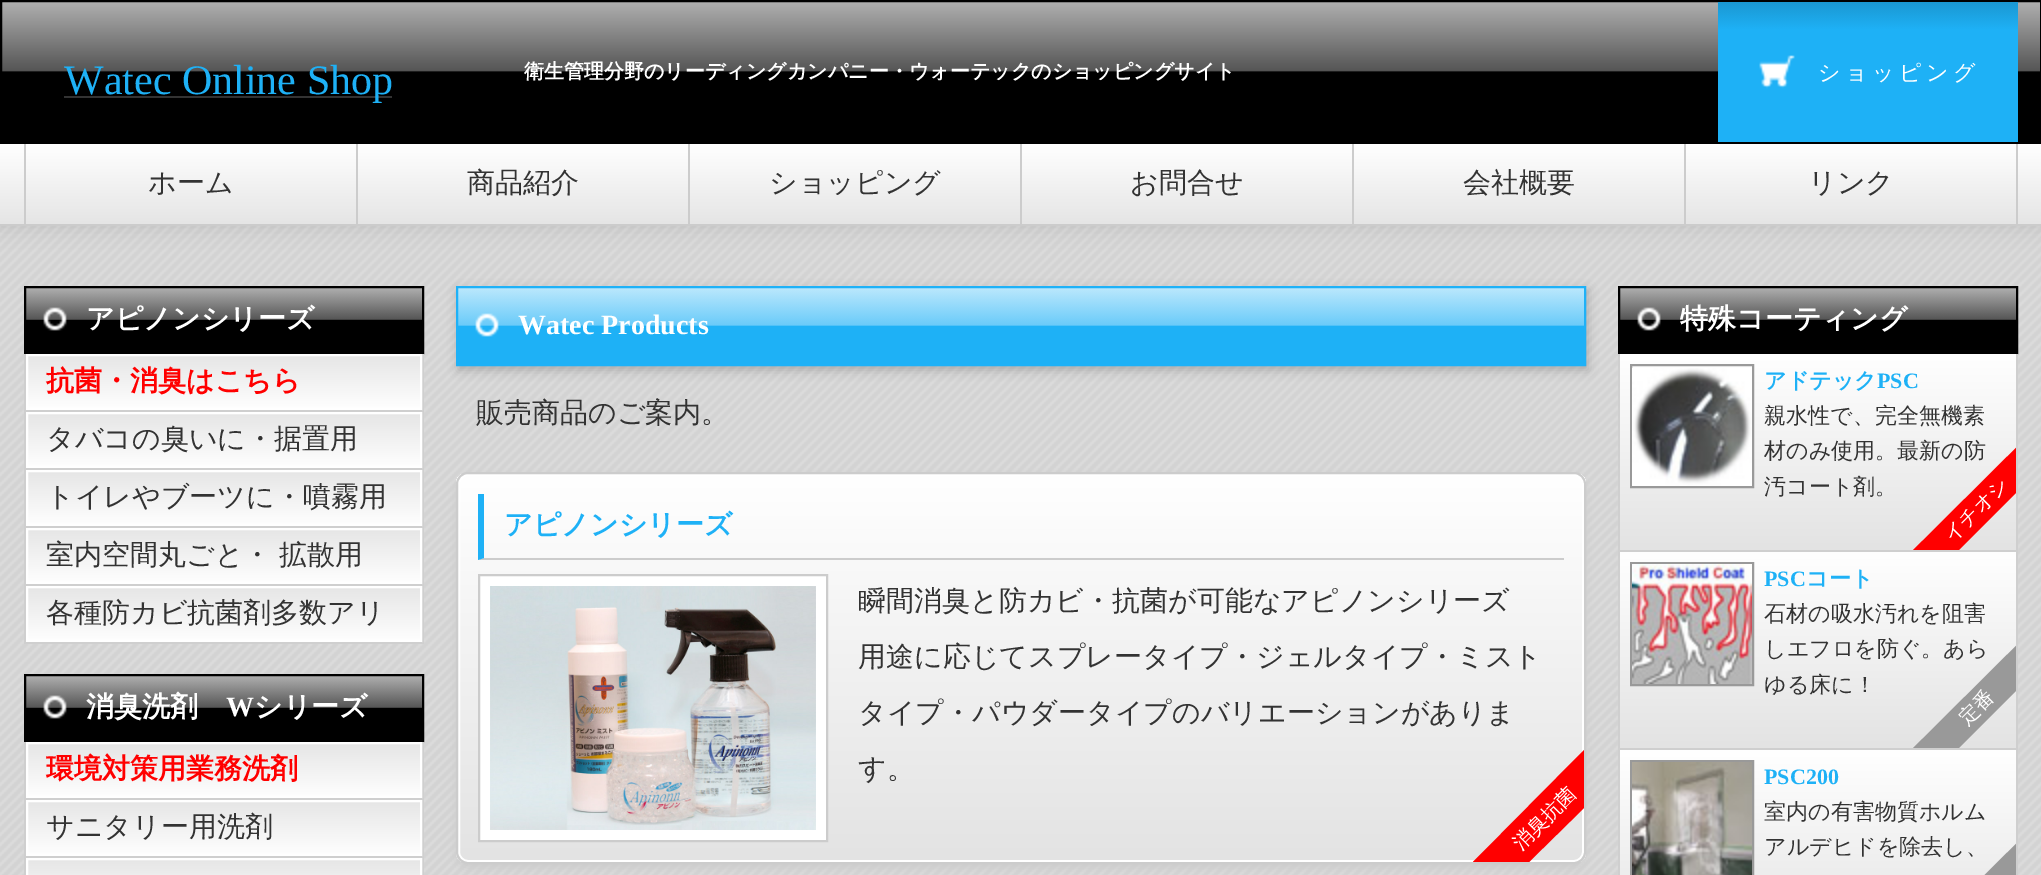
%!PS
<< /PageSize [2041 875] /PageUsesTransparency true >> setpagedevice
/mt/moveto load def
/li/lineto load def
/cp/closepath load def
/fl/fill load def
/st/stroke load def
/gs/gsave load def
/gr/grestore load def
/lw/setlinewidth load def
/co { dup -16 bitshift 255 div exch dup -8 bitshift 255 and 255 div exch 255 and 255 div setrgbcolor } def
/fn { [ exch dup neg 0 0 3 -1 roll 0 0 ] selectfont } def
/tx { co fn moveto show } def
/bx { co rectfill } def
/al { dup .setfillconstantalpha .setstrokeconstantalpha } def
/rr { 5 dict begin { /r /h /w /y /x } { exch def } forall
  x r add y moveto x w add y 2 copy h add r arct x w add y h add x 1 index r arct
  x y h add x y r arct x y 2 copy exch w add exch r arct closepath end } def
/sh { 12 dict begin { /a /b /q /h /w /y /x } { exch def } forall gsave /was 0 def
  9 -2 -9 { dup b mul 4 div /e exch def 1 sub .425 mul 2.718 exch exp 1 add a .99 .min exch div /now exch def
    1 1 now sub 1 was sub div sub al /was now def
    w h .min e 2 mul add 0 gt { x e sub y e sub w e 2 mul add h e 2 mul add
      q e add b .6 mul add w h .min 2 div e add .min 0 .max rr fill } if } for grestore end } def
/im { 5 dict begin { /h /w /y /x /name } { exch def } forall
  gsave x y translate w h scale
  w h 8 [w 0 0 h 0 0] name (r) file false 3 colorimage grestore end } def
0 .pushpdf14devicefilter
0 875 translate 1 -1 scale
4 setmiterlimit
0 0 2041 875 16#FFFFFF bx
(media/1.raw) 0 226 2041 649 im
gs 2 2 mt 2040 2 li 2040 142 li 2 142 li cp clip newpath
<< /ShadingType 2 /ColorSpace /DeviceRGB /Coords [1021 2 1021 142] /Extend [true true] /Function << /FunctionType 3 /Domain [0 1] /Functions [<< /FunctionType 2 /Domain [0 1] /C0 [.686 .686 .686] /C1 [.337 .337 .337] /N 1 >> << /FunctionType 2 /Domain [0 1] /C0 [.337 .337 .337] /C1 [0 0 0] /N 1 >> << /FunctionType 2 /Domain [0 1] /C0 [0 0 0] /C1 [0 0 0] /N 1 >>] /Bounds [.49 .5] /Encode [0 1 0 1 0 1] >> >> shfill gr
16#000000 co
2 lw
1 1 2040 142 rectstroke
64 96 328 2 16#333333 bx
16#000000 co
0 144 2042 82 0 10 .1 sh
(media/2.raw) 1718 2 300 140 im
gs 0 144 mt 2041 144 li 2041 224 li 0 224 li cp clip newpath
<< /ShadingType 2 /ColorSpace /DeviceRGB /Coords [1021 144 1021 224] /Extend [true true] /Function << /FunctionType 2 /Domain [0 1] /C0 [1 1 1] /C1 [.898 .898 .898] /N 1 >> >> shfill gr
0 224 2041 2 16#CCCCCC bx
356 144 2 80 16#CCCCCC bx
24 144 2 80 16#CCCCCC bx
688 144 2 80 16#CCCCCC bx
1020 144 2 80 16#CCCCCC bx
1352 144 2 80 16#CCCCCC bx
1684 144 2 80 16#CCCCCC bx
2016 144 2 80 16#CCCCCC bx
(media/3.raw) 26 288 396 64 im
16#000000 co
25 287 398 66 rectstroke
422 354 2 290 16#CFCFCF bx
24 354 2 290 16#CFCFCF bx
gs 28 356 mt 420 356 li 420 408 li 28 408 li cp clip newpath
<< /ShadingType 2 /ColorSpace /DeviceRGB /Coords [224 354 224 410] /Extend [true true] /Function << /FunctionType 2 /Domain [0 1] /C0 [.898 .898 .898] /C1 [1 1 1] /N 1 >> >> shfill gr
16#FFFFFF co
27 355 394 54 rectstroke
26 410 396 2 16#CFCFCF bx
gs 28 414 mt 420 414 li 420 466 li 28 466 li cp clip newpath
<< /ShadingType 2 /ColorSpace /DeviceRGB /Coords [224 412 224 468] /Extend [true true] /Function << /FunctionType 2 /Domain [0 1] /C0 [.898 .898 .898] /C1 [1 1 1] /N 1 >> >> shfill gr
16#FFFFFF co
27 413 394 54 rectstroke
26 468 396 2 16#CFCFCF bx
gs 28 472 mt 420 472 li 420 524 li 28 524 li cp clip newpath
<< /ShadingType 2 /ColorSpace /DeviceRGB /Coords [224 470 224 526] /Extend [true true] /Function << /FunctionType 2 /Domain [0 1] /C0 [.898 .898 .898] /C1 [1 1 1] /N 1 >> >> shfill gr
16#FFFFFF co
27 471 394 54 rectstroke
26 526 396 2 16#CFCFCF bx
gs 28 530 mt 420 530 li 420 582 li 28 582 li cp clip newpath
<< /ShadingType 2 /ColorSpace /DeviceRGB /Coords [224 528 224 584] /Extend [true true] /Function << /FunctionType 2 /Domain [0 1] /C0 [.898 .898 .898] /C1 [1 1 1] /N 1 >> >> shfill gr
16#FFFFFF co
27 529 394 54 rectstroke
26 584 396 2 16#CFCFCF bx
gs 28 588 mt 420 588 li 420 640 li 28 640 li cp clip newpath
<< /ShadingType 2 /ColorSpace /DeviceRGB /Coords [224 586 224 642] /Extend [true true] /Function << /FunctionType 2 /Domain [0 1] /C0 [.898 .898 .898] /C1 [1 1 1] /N 1 >> >> shfill gr
16#FFFFFF co
27 587 394 54 rectstroke
26 642 396 2 16#CFCFCF bx
(media/3.raw) 26 676 396 64 im
16#000000 co
25 675 398 66 rectstroke
422 742 2 133 16#CFCFCF bx
24 742 2 133 16#CFCFCF bx
gs 28 744 mt 420 744 li 420 796 li 28 796 li cp clip newpath
<< /ShadingType 2 /ColorSpace /DeviceRGB /Coords [224 742 224 798] /Extend [true true] /Function << /FunctionType 2 /Domain [0 1] /C0 [.898 .898 .898] /C1 [1 1 1] /N 1 >> >> shfill gr
16#FFFFFF co
27 743 394 54 rectstroke
26 798 396 2 16#CFCFCF bx
gs 28 802 mt 420 802 li 420 854 li 28 854 li cp clip newpath
<< /ShadingType 2 /ColorSpace /DeviceRGB /Coords [224 800 224 856] /Extend [true true] /Function << /FunctionType 2 /Domain [0 1] /C0 [.898 .898 .898] /C1 [1 1 1] /N 1 >> >> shfill gr
16#FFFFFF co
27 801 394 54 rectstroke
26 856 396 2 16#CFCFCF bx
gs 28 860 mt 420 860 li 420 875 li 28 875 li cp clip newpath
<< /ShadingType 2 /ColorSpace /DeviceRGB /Coords [224 858 224 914] /Extend [true true] /Function << /FunctionType 2 /Domain [0 1] /C0 [.898 .898 .898] /C1 [1 1 1] /N 1 >> >> shfill gr
16#FFFFFF co
27 859 394 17 rectstroke
16#000000 co
458 290 1130 80 0 5 .2 sh
(media/4.raw) 458 288 1126 76 im
16#1EB1F7 co
457 287 1128 78 rectstroke
16#CCCCCC co
456 476 1130 392 12 5 1 sh
gs
456 472 1130 392 12 rr clip newpath
gs 456 474 mt 1586 474 li 1586 862 li 456 862 li cp clip newpath
<< /ShadingType 2 /ColorSpace /DeviceRGB /Coords [1021 474 1021 862] /Extend [true true] /Function << /FunctionType 2 /Domain [0 1] /C0 [1 1 1] /C1 [.89 .89 .89] /N 1 >> >> shfill gr
gr
16#FFFFFF co
459 475 1124 386 9 rr st
16#CCCCCC co
457 473 1128 390 11 rr st
1564 560 mt 478 560 li 484 558 li 1564 558 li cp fl
16#1EB1F6 co
478 560 mt 478 494 li 484 494 li 484 558 li cp fl
16#FFFFFF co
479 575 mt 827 575 li 827 841 li 479 841 li cp gs fl gr
16#CCCCCC co
st
(media/5.raw) 490 586 326 244 im
16#FF0000 co
1529 862 mt 1473 862 li 1584 750 li 1584 808 li cp fl
(media/3.raw) 1620 288 396 64 im
16#000000 co
1619 287 398 66 rectstroke
gs 1620 354 mt 2016 354 li 2016 550 li 1620 550 li cp clip newpath
<< /ShadingType 2 /ColorSpace /DeviceRGB /Coords [1818 354 1818 550] /Extend [true true] /Function << /FunctionType 2 /Domain [0 1] /C0 [1 1 1] /C1 [.89 .89 .89] /N 1 >> >> shfill gr
2016 354 2 521 16#CFCFCF bx
1618 550 400 2 16#CFCFCF bx
1618 354 2 198 16#CFCFCF bx
16#999999 co
1631 365 122 122 rectstroke
(media/6.raw) 1632 368 120 118 im
gs 1620 552 mt 2016 552 li 2016 748 li 1620 748 li cp clip newpath
<< /ShadingType 2 /ColorSpace /DeviceRGB /Coords [1818 552 1818 748] /Extend [true true] /Function << /FunctionType 2 /Domain [0 1] /C0 [1 1 1] /C1 [.89 .89 .89] /N 1 >> >> shfill gr
1618 748 400 2 16#CFCFCF bx
1618 552 2 323 16#CFCFCF bx
16#999999 co
1631 563 122 122 rectstroke
(media/7.raw) 1632 564 120 120 im
gs 1620 750 mt 2016 750 li 2016 875 li 1620 875 li cp clip newpath
<< /ShadingType 2 /ColorSpace /DeviceRGB /Coords [1818 750 1818 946] /Extend [true true] /Function << /FunctionType 2 /Domain [0 1] /C0 [1 1 1] /C1 [.89 .89 .89] /N 1 >> >> shfill gr
1631 761 122 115 rectstroke
(media/8.raw) 1632 762 120 113 im
gs
1620 750 396 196 rectclip
1880 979 mt 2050 810 li 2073 832 li 1903 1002 li cp fl
gr
(Watec Online Shop) 64 94 /LiberationSerif-Regular 42 16#1EB1F6 tx
(衛生管理分野のリーディングカンパニー・ウォーテックのショッピングサイト) 524 78 /WenQuanYiZenHei-Bold 20 16#FFFFFF tx
/WenQuanYiZenHei-Medium 22 fn
1818 80 mt 4.5 0 (ショッピング) ashow
(ホーム) 148 192 /WenQuanYiZenHei-Medium 28 16#333333 tx
(商品紹介) 467 192 /WenQuanYiZenHei-Medium 28 16#333333 tx
(ショッピング) 769 192 /WenQuanYiZenHei-Medium 28 16#333333 tx
(お問合せ) 1130 192 /WenQuanYiZenHei-Medium 28 16#333333 tx
(会社概要) 1463 192 /WenQuanYiZenHei-Medium 28 16#333333 tx
(リンク) 1808 192 /WenQuanYiZenHei-Medium 28 16#333333 tx
(アピノンシリーズ) 86 328 /WenQuanYiZenHei-Bold 28 16#FFFFFF tx
(抗菌・消臭はこちら) 46 390 /WenQuanYiZenHei-Bold 28 16#FF0000 tx
(タバコの臭いに・据置用) 46 448 /WenQuanYiZenHei-Medium 28 16#333333 tx
(トイレやブーツに・噴霧用) 46 506 /WenQuanYiZenHei-Medium 28 16#333333 tx
46 564 mt -1 0 32 (室内空間丸ごと・ 拡散用) widthshow
(各種防カビ抗菌剤多数アリ) 46 622 /WenQuanYiZenHei-Medium 28 16#333333 tx
(消臭洗剤) 86 716 /WenQuanYiZenHei-Bold 28 16#FFFFFF tx
(W) 226 716 /LiberationSerif-Bold 28 16#FFFFFF tx
(シリーズ) 254 716 /WenQuanYiZenHei-Bold 28 16#FFFFFF tx
(環境対策用業務洗剤) 46 778 /WenQuanYiZenHei-Bold 28 16#FF0000 tx
(サニタリー用洗剤) 46 836 /WenQuanYiZenHei-Medium 28 16#333333 tx
(Watec Products) 518 334 /LiberationSerif-Bold 28 16#FFFFFF tx
(販売商品のご案内。) 476 422 /WenQuanYiZenHei-Medium 28 16#333333 tx
(アピノンシリーズ) 504 534 /WenQuanYiZenHei-Bold 28 16#1EB1F6 tx
(瞬間消臭と防カビ・抗菌が可能なアピノンシリーズ) 858 610 /WenQuanYiZenHei-Medium 28 16#333333 tx
(用途に応じてスプレータイプ・ジェルタイプ・ミスト) 858 666 /WenQuanYiZenHei-Medium 28 16#333333 tx
(タイプ・パウダータイプのバリエーションがありま) 858 722 /WenQuanYiZenHei-Medium 28 16#333333 tx
(す。) 858 778 /WenQuanYiZenHei-Medium 28 16#333333 tx
/WenQuanYiZenHei-Medium 20 fn
16#FFFFFF co
gs 1521 851 translate -45 rotate 0 0 mt (消臭抗菌) show gr
(特殊コーティング) 1680 328 /WenQuanYiZenHei-Bold 28 16#FFFFFF tx
(アドテック) 1764 388 /WenQuanYiZenHei-Bold 22 16#1EB1F6 tx
(PSC) 1877 388 /LiberationSerif-Bold 22 16#1EB1F6 tx
(親水性で、完全無機素) 1764 423 /WenQuanYiZenHei-Medium 22 16#333333 tx
(材のみ使用。最新の防) 1764 458 /WenQuanYiZenHei-Medium 22 16#333333 tx
(汚コート剤。) 1764 494 /WenQuanYiZenHei-Medium 22 16#333333 tx
gs
1620 354 396 196 rectclip
16#FF0000 co
1880 583 mt 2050 414 li 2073 436 li 1903 606 li cp fl
gr
/WenQuanYiZenHei-Medium 20 fn
16#FFFFFF co
gs 1952 543 translate -45 rotate 0 0 mt (イチオシ) show gr
(PSC) 1764 586 /LiberationSerif-Bold 22 16#1EB1F6 tx
(コート) 1806 586 /WenQuanYiZenHei-Bold 22 16#1EB1F6 tx
(石材の吸水汚れを阻害) 1764 621 /WenQuanYiZenHei-Medium 22 16#333333 tx
(しエフロを防ぐ。あら) 1764 656 /WenQuanYiZenHei-Medium 22 16#333333 tx
(ゆる床に！) 1764 692 /WenQuanYiZenHei-Medium 22 16#333333 tx
gs
1620 552 396 196 rectclip
16#999999 co
1880 781 mt 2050 612 li 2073 634 li 1903 804 li cp fl
gr
/WenQuanYiZenHei-Medium 20 fn
16#FFFFFF co
gs 1967 726 translate -45 rotate 0 0 mt (定番) show gr
(PSC200) 1764 784 /LiberationSerif-Bold 22 16#1EB1F6 tx
(室内の有害物質ホルム) 1764 819 /WenQuanYiZenHei-Medium 22 16#333333 tx
(アルデヒドを除去し、) 1764 854 /WenQuanYiZenHei-Medium 22 16#333333 tx
.poppdf14devicefilter showpage
